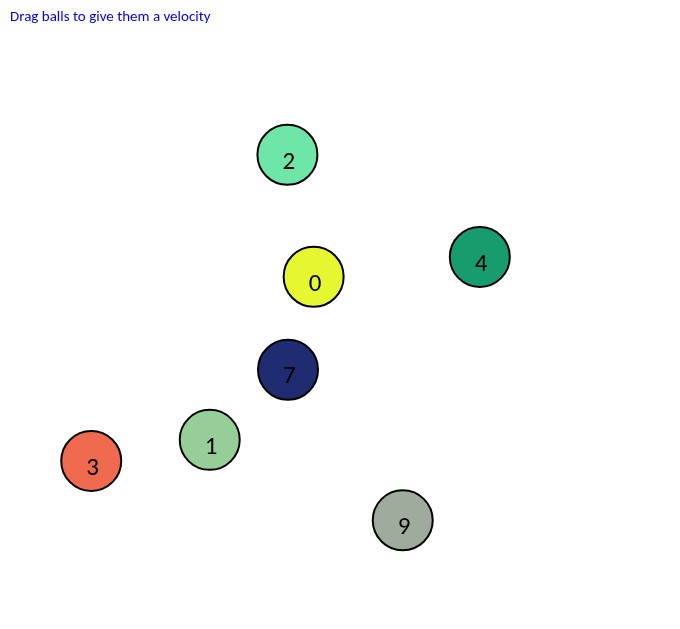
%!PS
<< /PageSize [680 629] >> setpagedevice
/co { dup -16 bitshift 255 div exch dup -8 bitshift 255 and 255 div exch 255 and 255 div setrgbcolor } def
/bx { co rectfill } def
/im { 5 dict begin { /h /w /y /x /name } { exch def } forall
  gsave x y translate w h scale
  w h 8 [w 0 0 h 0 0] name (r) file false 3 colorimage grestore end } def
0 629 translate 1 -1 scale
4 setmiterlimit
0 0 680 629 16#FFFFFF bx
(media/1.raw) 11 11 500 541 im
showpage
